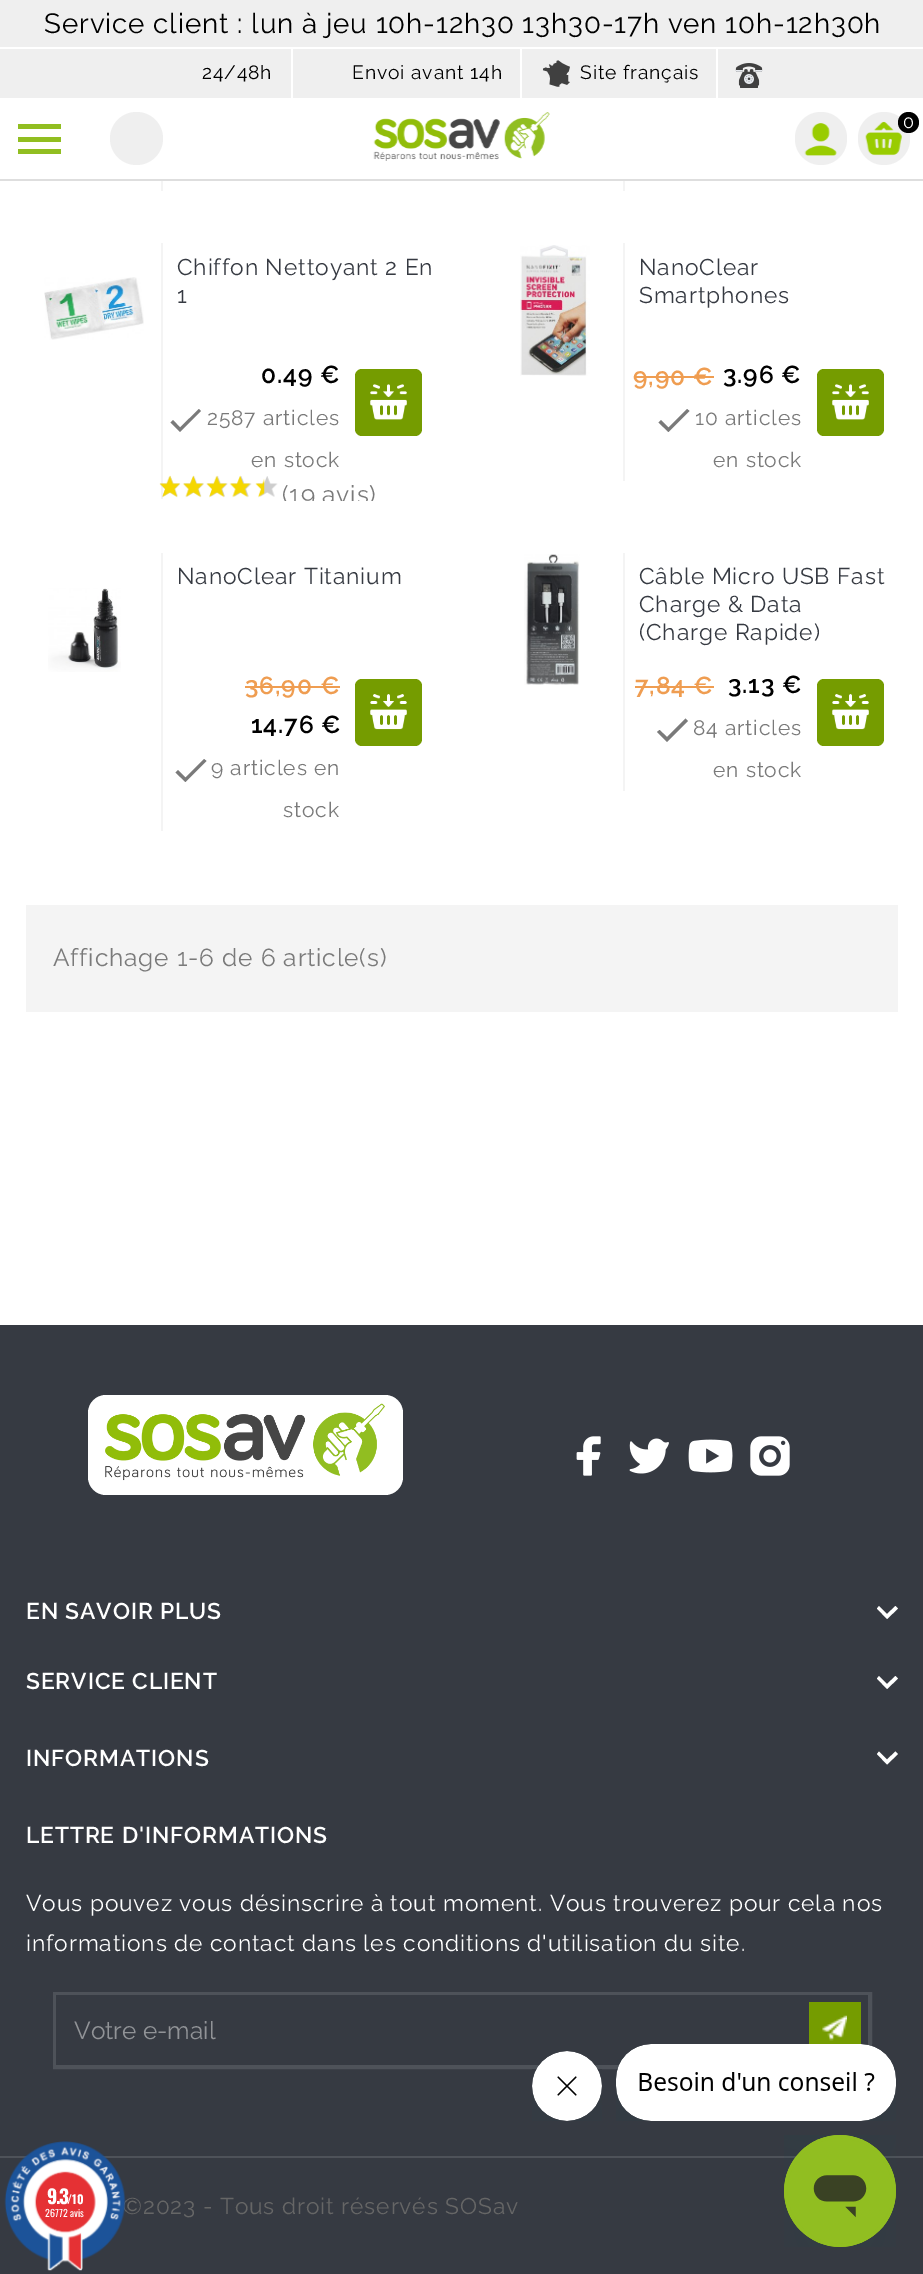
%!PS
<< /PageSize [923 2274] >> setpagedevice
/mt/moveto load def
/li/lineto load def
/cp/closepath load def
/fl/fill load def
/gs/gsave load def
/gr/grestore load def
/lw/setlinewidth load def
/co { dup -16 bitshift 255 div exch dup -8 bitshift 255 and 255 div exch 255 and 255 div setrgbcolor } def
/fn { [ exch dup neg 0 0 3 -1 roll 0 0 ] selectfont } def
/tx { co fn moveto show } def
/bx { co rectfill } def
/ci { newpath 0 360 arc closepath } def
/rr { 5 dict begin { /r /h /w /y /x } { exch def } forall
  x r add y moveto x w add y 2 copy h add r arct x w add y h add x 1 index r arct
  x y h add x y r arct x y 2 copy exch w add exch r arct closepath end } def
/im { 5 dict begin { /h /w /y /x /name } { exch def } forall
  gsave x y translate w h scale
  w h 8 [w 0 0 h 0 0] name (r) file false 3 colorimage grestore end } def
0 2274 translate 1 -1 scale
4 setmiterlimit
0 0 923 2274 16#FFFFFF bx
0 179 923 2 16#DEDEDE bx
0 0 923 98 16#EFEFEF bx
0 47 923 2 16#FFFFFF bx
291 49 2 49 16#FFFFFF bx
520 49 2 49 16#FFFFFF bx
716 49 2 49 16#FFFFFF bx
(media/1.raw) 542 60 28 27 im
(media/2.raw) 735 63 28 25 im
18 124 43 5 16#91BE21 bx
18 137 43 5 16#91BE21 bx
18 149 43 5 16#91BE21 bx
16#EFEFEF co
136.5 138.5 26.5 ci fl
(media/3.raw) 373 112 177 49 im
795 112 52 53 26 rr fl
(media/4.raw) 804 123 33 33 im
858 112 52 53 26 rr fl
(media/5.raw) 865 121 37 35 im
16#000000 co
908.5 122.5 10.5 ci fl
161 181 2 10 16#F4F4F4 bx
623 181 2 10 16#F4F4F4 bx
161 243 2 256 16#F4F4F4 bx
(media/6.raw) 44 277 100 63 im
16#7A7A7A co
180 427.5 mt 199 409 li 201 411 li 180 432 li 170.5 422.5 li 173 420 li cp fl
(media/8.raw) 160 476 118 21 im
(media/7.raw) 159 475 106 23 im
16#759C00 co
355 369 67 67 7 rr fl
(media/9.raw) 370 384 37 36 im
623 243 2 238 16#F4F4F4 bx
(media/10.raw) 520 245 70 131 im
634 376 80 2 16#EF9D51 bx
16#7A7A7A co
668.5 427.5 mt 687 409 li 689.5 411 li 668.5 432 li 658.5 422.5 li 661 420 li cp fl
16#759C00 co
817 369 67 67 7 rr fl
(media/11.raw) 832 384 37 36 im
161 553 2 278 16#F4F4F4 bx
(media/12.raw) 48 588 73 84 im
245 686 95 2 16#EF9D51 bx
16#7A7A7A co
185.5 777.5 mt 204 759 li 206.5 761 li 185.5 782 li 175.5 772.5 li 178 770 li cp fl
16#759C00 co
355 679 67 67 7 rr fl
(media/13.raw) 370 694 37 36 im
623 553 2 238 16#F4F4F4 bx
(media/14.raw) 524 554 56 131 im
635 686 79 2 16#EF9D51 bx
16#7A7A7A co
667 737 mt 685.5 718.5 li 688 721 li 667 742 li 657 732 li 659.5 730 li cp fl
16#759C00 co
817 679 67 67 7 rr fl
(media/15.raw) 832 694 37 36 im
26 905 872 107 16#F4F4F4 bx
0 1325 923 949 16#363A42 bx
16#FFFFFF co
88 1395 315 100 18 rr fl
(media/16.raw) 105 1403 280 78 im
(media/17.raw) 576 1436 25 40 im
(media/18.raw) 629 1438 40 36 im
(media/19.raw) 688 1439 45 34 im
(media/20.raw) 750 1436 40 40 im
879 1606 mt 887 1614 li 895.5 1606 li 898 1608.5 li 887 1619 li 877 1608.5 li cp fl
879 1676 mt 887 1684 li 895.5 1676 li 898 1678.5 li 887 1689 li 877 1678.5 li cp fl
879 1751.5 mt 887 1759.5 li 895.5 1751.5 li 898 1754 li 887 1764.5 li 877 1754 li cp fl
16#4E5259 co
4 lw
55 1994 815 73 rectstroke
56 1995 812 70 16#363A42 bx
809 2002 52 42 16#759C00 bx
(media/21.raw) 822 2015 25 26 im
0 2156 923 2 16#4E5259 bx
(media/23.raw) 532 2051 70 70 im
(media/24.raw) 616 2044 280 77 im
(media/25.raw) 784 2135 112 112 im
/Raleway-Regular 27.75 fn
16#000000 co
44 33 mt .88 0 (Service client : lun à jeu 10h-12h30 13h30-17h ven 10h-12h30h) ashow
/Raleway-Regular 19.25 fn
202 79 mt .88 0 (24/48h) ashow
352 79 mt .88 0 (Envoi avant 14h) ashow
580 79 mt .88 0 (Site français) ashow
/Raleway-Regular 18 fn
16#FFFFFF co
903 128 mt .88 0 (0) ashow
/Raleway-Regular 22.75 fn
16#363A42 co
177 275 mt .88 0 (Chiffon Nettoyant 2 En) ashow
177 303 mt .88 0 (1) ashow
/Raleway-SemiBold 24.5 fn
16#000000 co
261 383 mt .88 0 (0.49 €) ashow
/Raleway-Regular 21 fn
16#7A7A7A co
207 425 mt .88 0 (2587 articles) ashow
251 467 mt .88 0 (en stock) ashow
gs
26 243 410 258 rectclip
/Raleway-Regular 24.5 fn
282 503 mt -1 0 32 .88 0 (\(19 avis\)) awidthshow
gr
/Raleway-Regular 22.75 fn
16#363A42 co
639 275 mt .88 0 (NanoClear) ashow
639 303 mt .88 0 (Smartphones) ashow
/Raleway-SemiBold 24.5 fn
16#EF9D51 co
633 385 mt .88 0 (9,90 €) ashow
16#000000 co
723 383 mt .88 0 (3.96 €) ashow
/Raleway-Regular 21 fn
16#7A7A7A co
695 425 mt .88 0 (10 articles) ashow
713 467 mt .88 0 (en stock) ashow
/Raleway-Regular 22.75 fn
16#363A42 co
177 584 mt .88 0 (NanoClear Titanium) ashow
/Raleway-SemiBold 24.5 fn
16#EF9D51 co
245 694 mt .88 0 (36,90 €) ashow
16#000000 co
251 733 mt .88 0 (14.76 €) ashow
/Raleway-Regular 21 fn
16#7A7A7A co
211 775 mt .88 0 (9 articles en) ashow
283 817 mt .88 0 (stock) ashow
/Raleway-Regular 22.75 fn
16#363A42 co
639 584 mt .88 0 (Câble Micro USB Fast) ashow
639 612 mt .88 0 (Charge & Data) ashow
639 640 mt .88 0 (\(Charge Rapide\)) ashow
/Raleway-SemiBold 24.5 fn
16#EF9D51 co
635 694 mt .88 0 (7,84 €) ashow
16#000000 co
728 693 mt .88 0 (3.13 €) ashow
/Raleway-Regular 21 fn
16#7A7A7A co
693 735 mt .88 0 (84 articles) ashow
713 777 mt .88 0 (en stock) ashow
/Raleway-Regular 24.5 fn
53 966 mt .88 0 (Affichage 1-6 de 6 article\(s\)) ashow
/Raleway-SemiBold 22.75 fn
16#FFFFFF co
26 1619 mt .88 0 (EN SAVOIR PLUS) ashow
26 1689 mt .88 0 (SERVICE CLIENT) ashow
26 1766 mt .88 0 (INFORMATIONS) ashow
26 1843 mt .88 0 (LETTRE D'INFORMATIONS) ashow
/Raleway-Regular 22.75 fn
26 1911 mt .88 0 (Vous pouvez vous désinscrire à tout moment. Vous trouverez pour cela nos) ashow
26 1951 mt .88 0 (informations de contact dans les conditions d'utilisation du site.) ashow
(Votre e-mail) 74 2039 /Raleway-Regular 24.5 16#919397 tx
/Raleway-Regular 22.75 fn
16#666666 co
123 2214 mt .88 0 (©2023 - Tous droit réservés SOSav) ashow
(media/22.raw) 4 2141 122 130 im
/Oswald-Bold 19.25 fn
16#FFFFFF co
47 2204 mt -1.5 0 (9.3) ashow
(/10) 67 2204 /Oswald-Bold 12 16#FFFFFF tx
(26772 avis) 45 2217 /Oswald-Regular 10 16#FFFFFF tx
showpage
